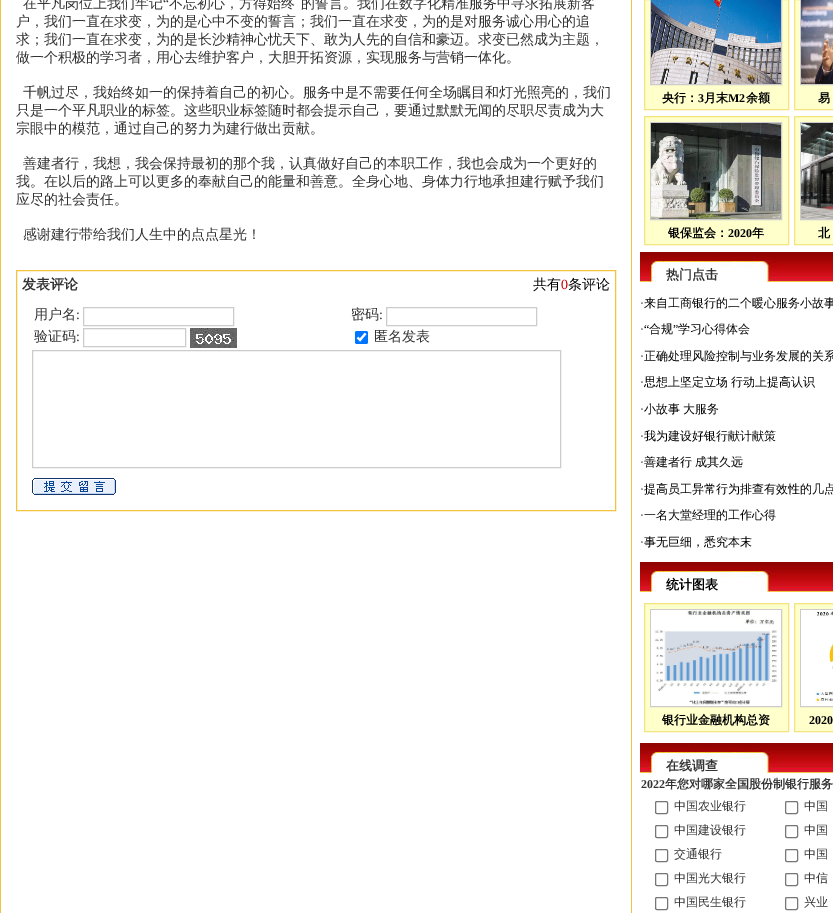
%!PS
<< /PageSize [833 913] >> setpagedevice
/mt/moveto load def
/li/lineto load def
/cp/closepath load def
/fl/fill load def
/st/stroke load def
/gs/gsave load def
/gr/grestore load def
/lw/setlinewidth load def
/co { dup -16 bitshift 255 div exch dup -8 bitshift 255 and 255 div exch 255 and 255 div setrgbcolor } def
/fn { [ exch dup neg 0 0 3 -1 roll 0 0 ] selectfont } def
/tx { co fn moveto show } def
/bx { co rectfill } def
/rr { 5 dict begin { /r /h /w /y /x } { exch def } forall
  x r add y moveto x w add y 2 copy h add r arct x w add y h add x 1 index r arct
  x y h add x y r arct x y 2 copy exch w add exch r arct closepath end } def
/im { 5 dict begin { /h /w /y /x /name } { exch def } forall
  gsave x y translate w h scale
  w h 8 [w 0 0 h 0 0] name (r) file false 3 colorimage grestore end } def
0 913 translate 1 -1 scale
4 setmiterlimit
0 0 833 913 16#FFFFFF bx
631 0 1 913 16#F2C341 bx
0 0 1 913 16#F2C341 bx
16.5 270.5 599 240 rectstroke
16#CCCCCC co
83.5 307.5 150 18 rectstroke
386.5 307.5 150 18 rectstroke
83.5 328.5 102 18 rectstroke
(media/1.raw) 190 328 47 20 im
16#0075FF co
355 331 13 13 2 rr fl
16#FFFFFF co
2.1 lw
357.5 337.5 mt 360 340 li 365.5 333.5 li st
16#CCCCCC co
1 lw
32.5 350.5 528 117 rectstroke
(media/2.raw) 32 478 84 17 im
16#FFFFCC co
644.5 -.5 mt 788.5 -.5 li 788.5 109.5 li 644.5 109.5 li cp gs fl gr
16#F3E47D co
st
16#CCCCCC co
650.5 -.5 131 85 rectstroke
(media/3.raw) 651 0 130 84 im
16#FFFFCC co
794.5 -.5 mt 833.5 -.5 li 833.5 109.5 li 794.5 109.5 li cp gs fl gr
16#F3E47D co
st
16#CCCCCC co
800.5 -.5 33 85 rectstroke
(media/4.raw) 801 0 32 84 im
16#FFFFCC co
644.5 116.5 mt 788.5 116.5 li 788.5 244.5 li 644.5 244.5 li cp gs fl gr
16#F3E47D co
st
16#CCCCCC co
650.5 122.5 131 97 rectstroke
(media/5.raw) 651 123 130 96 im
16#FFFFCC co
794.5 116.5 mt 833.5 116.5 li 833.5 244.5 li 794.5 244.5 li cp gs fl gr
16#F3E47D co
st
16#CCCCCC co
800.5 122.5 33 97 rectstroke
(media/6.raw) 801 123 32 96 im
(media/7.raw) 640 252 193 30 im
(media/7.raw) 640 562 193 30 im
16#FFFFCC co
644.5 603.5 mt 788.5 603.5 li 788.5 731.5 li 644.5 731.5 li cp gs fl gr
16#F3E47D co
st
16#CCCCCC co
650.5 609.5 131 97 rectstroke
(media/8.raw) 651 610 130 96 im
16#FFFFCC co
794.5 603.5 mt 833.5 603.5 li 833.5 731.5 li 794.5 731.5 li cp gs fl gr
16#F3E47D co
st
16#CCCCCC co
800.5 609.5 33 97 rectstroke
(media/9.raw) 801 610 32 96 im
(media/7.raw) 640 743 193 30 im
16#767676 co
655.5 801.5 12 12 1.5 rr st
785.5 801.5 12 12 1.5 rr st
655.5 825.5 12 12 1.5 rr st
785.5 825.5 12 12 1.5 rr st
655.5 849.5 12 12 1.5 rr st
785.5 849.5 12 12 1.5 rr st
655.5 873.5 12 12 1.5 rr st
785.5 873.5 12 12 1.5 rr st
655.5 897.5 12 12 1.5 rr st
785.5 897.5 12 12 1.5 rr st
(在平凡岗位上我们牢记) 23 8 /WenQuanYiZenHei-Medium 14 16#333333 tx
(“) 163 8 /LiberationSerif-Regular 14 16#333333 tx
(不忘初心，方得始终) 169 8 /WenQuanYiZenHei-Medium 14 16#333333 tx
(的誓言。我们在数字化精准服务中寻求拓展新客) 301 8 /WenQuanYiZenHei-Medium 14 16#333333 tx
(户，我们一直在求变，为的是心中不变的誓言；我们一直在求变，为的是对服务诚心用心的追) 16 26 /WenQuanYiZenHei-Medium 14 16#333333 tx
(求；我们一直在求变，为的是长沙精神心忧天下、敢为人先的自信和豪迈。求变已然成为主题，) 16 44 /WenQuanYiZenHei-Medium 14 16#333333 tx
(做一个积极的学习者，用心去维护客户，大胆开拓资源，实现服务与营销一体化。) 16 62 /WenQuanYiZenHei-Medium 14 16#333333 tx
(千帆过尽，我始终如一的保持着自己的初心。服务中是不需要任何全场瞩目和灯光照亮的，我们) 23 97 /WenQuanYiZenHei-Medium 14 16#333333 tx
(只是一个平凡职业的标签。这些职业标签随时都会提示自己，要通过默默无闻的尽职尽责成为大) 16 115 /WenQuanYiZenHei-Medium 14 16#333333 tx
(宗眼中的模范，通过自己的努力为建行做出贡献。) 16 133 /WenQuanYiZenHei-Medium 14 16#333333 tx
(善建者行，我想，我会保持最初的那个我，认真做好自己的本职工作，我也会成为一个更好的) 23 168 /WenQuanYiZenHei-Medium 14 16#333333 tx
(我。在以后的路上可以更多的奉献自己的能量和善意。全身心地、身体力行地承担建行赋予我们) 16 186 /WenQuanYiZenHei-Medium 14 16#333333 tx
(应尽的社会责任。) 16 204 /WenQuanYiZenHei-Medium 14 16#333333 tx
(感谢建行带给我们人生中的点点星光！) 23 239 /WenQuanYiZenHei-Medium 14 16#333333 tx
(发表评论) 22 289 /WenQuanYiZenHei-Bold 14 16#333333 tx
(共有) 533 289 /WenQuanYiZenHei-Medium 14 16#000000 tx
(0) 561 289 /LiberationSerif-Regular 14 16#CC0000 tx
(条评论) 568 289 /WenQuanYiZenHei-Medium 14 16#000000 tx
(用户名) 34 319 /WenQuanYiZenHei-Medium 14 16#333333 tx
(:) 76 319 /LiberationSerif-Regular 14 16#333333 tx
(密码) 351 319 /WenQuanYiZenHei-Medium 14 16#333333 tx
(:) 379 319 /LiberationSerif-Regular 14 16#333333 tx
(验证码) 34 341 /WenQuanYiZenHei-Medium 14 16#333333 tx
(:) 76 341 /LiberationSerif-Regular 14 16#333333 tx
(匿名发表) 374 341 /WenQuanYiZenHei-Medium 14 16#333333 tx
(央行：) 662 102 /WenQuanYiZenHei-Bold 12 16#000000 tx
(3) 698 102 /LiberationSerif-Bold 12 16#000000 tx
(月末) 704 102 /WenQuanYiZenHei-Bold 12 16#000000 tx
(M2) 728 102 /LiberationSerif-Bold 12 16#000000 tx
(余额) 746 102 /WenQuanYiZenHei-Bold 12 16#000000 tx
(易) 818 102 /WenQuanYiZenHei-Bold 12 16#000000 tx
(银保监会：) 668 237 /WenQuanYiZenHei-Bold 12 16#000000 tx
(2020) 728 237 /LiberationSerif-Bold 12 16#000000 tx
(年) 752 237 /WenQuanYiZenHei-Bold 12 16#000000 tx
(北) 818 237 /WenQuanYiZenHei-Bold 12 16#000000 tx
(热门点击) 666 279 /WenQuanYiZenHei-Bold 13 16#333333 tx
(·) 640 307 /LiberationSerif-Regular 12 16#333333 tx
(来自工商银行的二个暖心服务小故事) 644 307 /WenQuanYiZenHei-Medium 12 16#000000 tx
(·) 640 333 /LiberationSerif-Regular 12 16#333333 tx
(“) 644 333 /LiberationSerif-Regular 12 16#000000 tx
(合规) 649 333 /WenQuanYiZenHei-Medium 12 16#000000 tx
(”) 673 333 /LiberationSerif-Regular 12 16#000000 tx
(学习心得体会) 678 333 /WenQuanYiZenHei-Medium 12 16#000000 tx
(·) 640 360 /LiberationSerif-Regular 12 16#333333 tx
(正确处理风险控制与业务发展的关系) 644 360 /WenQuanYiZenHei-Medium 12 16#000000 tx
(·) 640 386 /LiberationSerif-Regular 12 16#333333 tx
/WenQuanYiZenHei-Medium 12 fn
16#000000 co
644 386 mt -1 0 32 (思想上坚定立场 行动上提高认识) widthshow
(·) 640 413 /LiberationSerif-Regular 12 16#333333 tx
/WenQuanYiZenHei-Medium 12 fn
16#000000 co
644 413 mt -1 0 32 (小故事 大服务) widthshow
(·) 640 440 /LiberationSerif-Regular 12 16#333333 tx
(我为建设好银行献计献策) 644 440 /WenQuanYiZenHei-Medium 12 16#000000 tx
(·) 640 466 /LiberationSerif-Regular 12 16#333333 tx
/WenQuanYiZenHei-Medium 12 fn
16#000000 co
644 466 mt -1 0 32 (善建者行 成其久远) widthshow
(·) 640 493 /LiberationSerif-Regular 12 16#333333 tx
(提高员工异常行为排查有效性的几点) 644 493 /WenQuanYiZenHei-Medium 12 16#000000 tx
(·) 640 519 /LiberationSerif-Regular 12 16#333333 tx
(一名大堂经理的工作心得) 644 519 /WenQuanYiZenHei-Medium 12 16#000000 tx
(·) 640 546 /LiberationSerif-Regular 12 16#333333 tx
(事无巨细，悉究本末) 644 546 /WenQuanYiZenHei-Medium 12 16#000000 tx
(统计图表) 666 589 /WenQuanYiZenHei-Bold 13 16#000000 tx
(银行业金融机构总资) 662 724 /WenQuanYiZenHei-Bold 12 16#000000 tx
(2020) 809 724 /LiberationSerif-Bold 12 16#000000 tx
(在线调查) 666 770 /WenQuanYiZenHei-Bold 13 16#333333 tx
(2022) 641 788 /LiberationSerif-Bold 12 16#333333 tx
(年您对哪家全国股份制银行服务) 665 788 /WenQuanYiZenHei-Bold 12 16#333333 tx
(中国农业银行) 674 810 /WenQuanYiZenHei-Medium 12 16#333333 tx
(中国) 804 810 /WenQuanYiZenHei-Medium 12 16#333333 tx
(中国建设银行) 674 834 /WenQuanYiZenHei-Medium 12 16#333333 tx
(中国) 804 834 /WenQuanYiZenHei-Medium 12 16#333333 tx
(交通银行) 674 858 /WenQuanYiZenHei-Medium 12 16#333333 tx
(中国) 804 858 /WenQuanYiZenHei-Medium 12 16#333333 tx
(中国光大银行) 674 882 /WenQuanYiZenHei-Medium 12 16#333333 tx
(中信) 804 882 /WenQuanYiZenHei-Medium 12 16#333333 tx
(中国民生银行) 674 906 /WenQuanYiZenHei-Medium 12 16#333333 tx
(兴业) 804 906 /WenQuanYiZenHei-Medium 12 16#333333 tx
showpage
